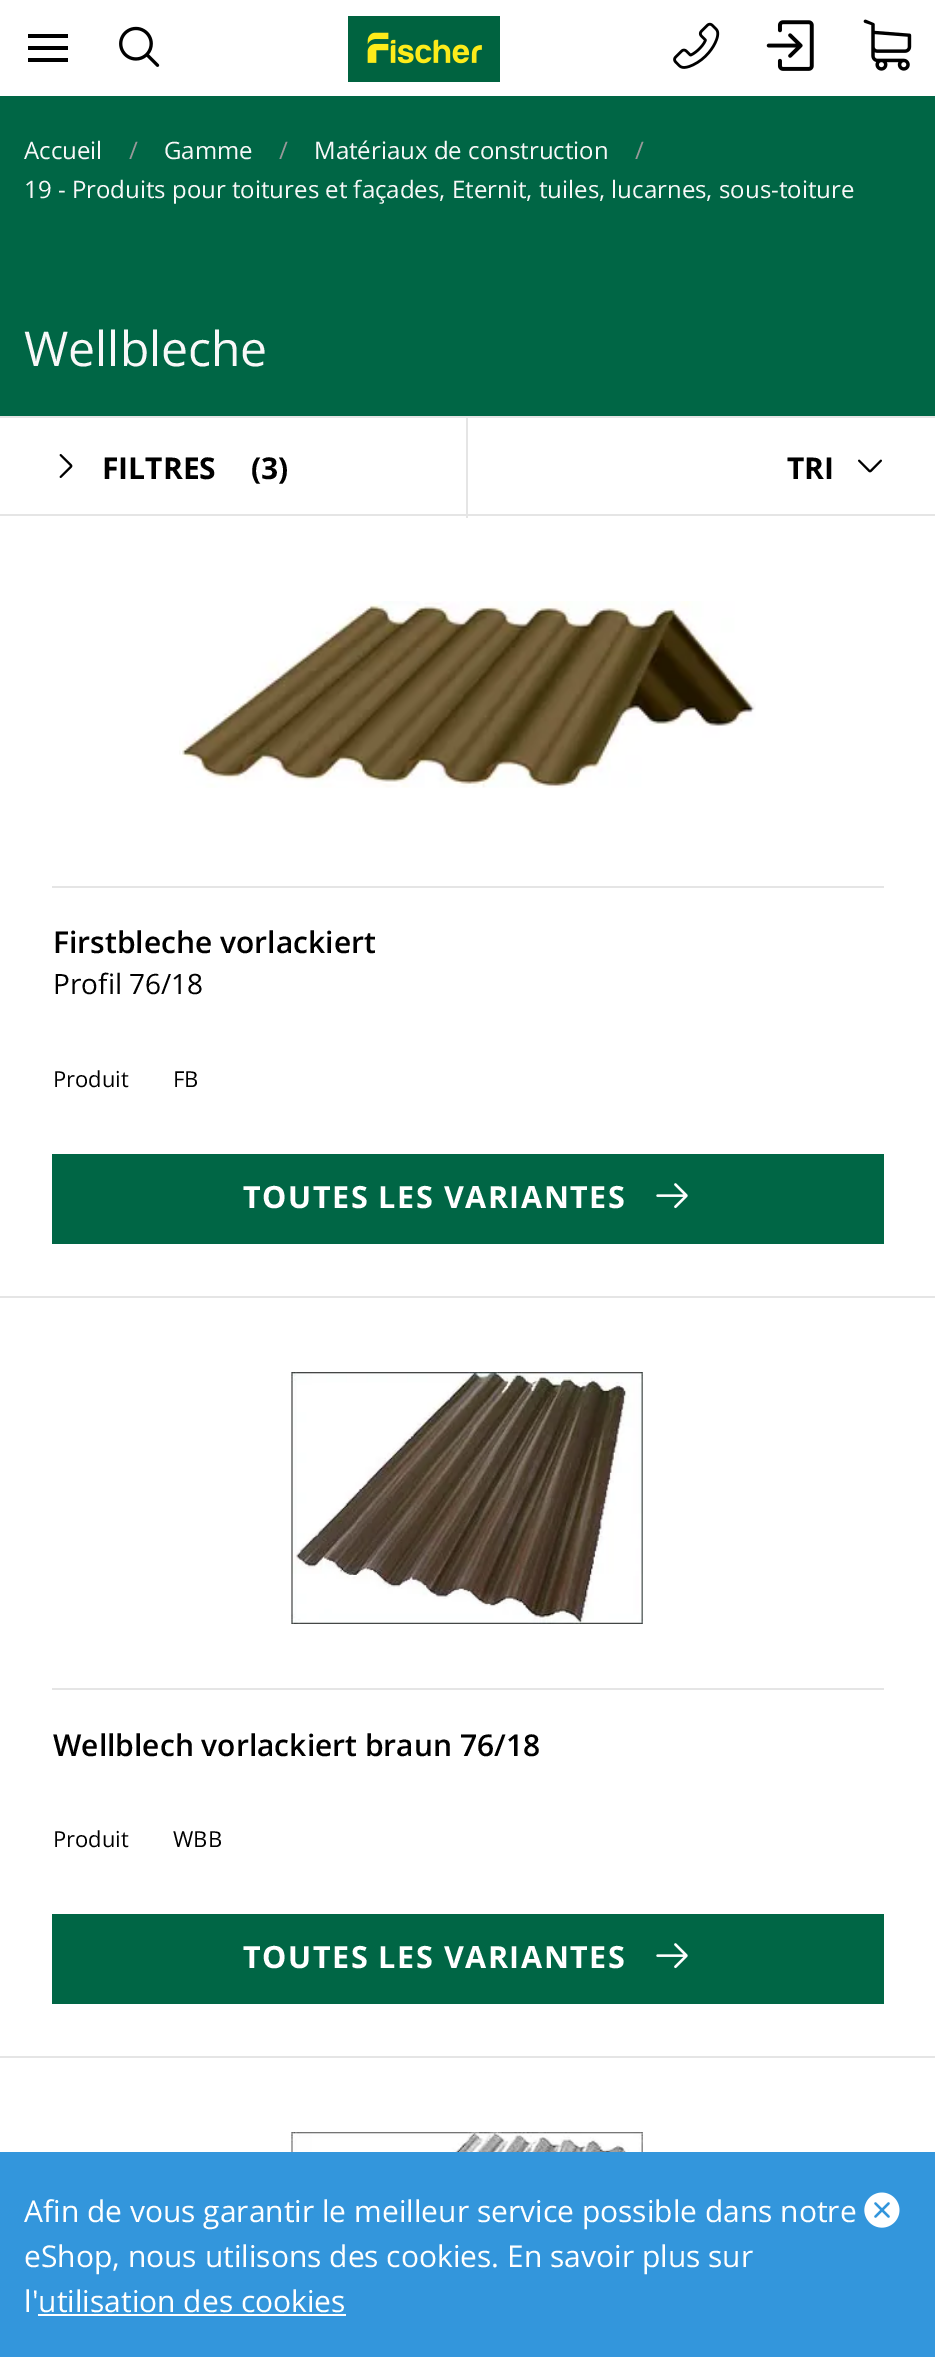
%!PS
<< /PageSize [935 2357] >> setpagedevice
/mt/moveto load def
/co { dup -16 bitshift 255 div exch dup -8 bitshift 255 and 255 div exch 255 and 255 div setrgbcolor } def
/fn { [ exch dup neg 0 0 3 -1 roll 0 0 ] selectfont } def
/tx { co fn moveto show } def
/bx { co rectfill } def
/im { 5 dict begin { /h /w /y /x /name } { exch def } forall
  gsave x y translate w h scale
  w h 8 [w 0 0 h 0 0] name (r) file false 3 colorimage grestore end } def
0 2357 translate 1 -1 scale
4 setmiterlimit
0 0 935 2357 16#FFFFFF bx
28 34 40 4 16#000000 bx
28 46 40 4 16#000000 bx
28 58 40 4 16#000000 bx
(media/1.raw) 119 26 41 41 im
(media/2.raw) 348 16 152 66 im
(media/3.raw) 673 22 47 47 im
(media/4.raw) 766 20 48 51 im
(media/5.raw) 863 19 49 52 im
0 96 935 320 16#006645 bx
0 416 935 2 16#E5E5E5 bx
0 514 935 2 16#E5E5E5 bx
466 418 2 100 16#E5E5E5 bx
(media/6.raw) 59 454 14 24 im
(media/7.raw) 858 459 24 14 im
0 1296 935 2 16#E5E5E5 bx
(media/8.raw) 179 601 577 187 im
52 886 832 2 16#E5E5E5 bx
52 1154 832 90 16#006645 bx
(media/9.raw) 656 1183 32 26 im
0 2056 935 2 16#E5E5E5 bx
(media/10.raw) 291 1372 352 252 im
52 1688 832 2 16#E5E5E5 bx
52 1914 832 90 16#006645 bx
(media/9.raw) 656 1943 32 26 im
(media/11.raw) 291 2132 352 20 im
0 2152 935 205 16#3396DC bx
38 2314 308 2 16#FFFFFF bx
(media/12.raw) 864 2192 36 36 im
(Accueil) 24 159 /OpenSans-Regular 24 16#F8F8F8 tx
(/) 129 159 /OpenSans-Regular 24 16#999999 tx
(Gamme) 164 159 /OpenSans-Regular 24 16#F8F8F8 tx
(/) 279 159 /OpenSans-Regular 24 16#999999 tx
(Matériaux de construction) 314 159 /OpenSans-Regular 24 16#F8F8F8 tx
(/) 635 159 /OpenSans-Regular 24 16#999999 tx
(19 - Produits pour toitures et façades, Eternit, tuiles, lucarnes, sous-toiture) 24 198 /OpenSans-Regular 24 16#F8F8F8 tx
(Wellbleche) 24 366 /OpenSans-Regular 48 16#F8F8F8 tx
(FILTRES) 102 479 /OpenSans-Bold 30 16#000000 tx
(\(3\)) 251 479 /OpenSans-Bold 30 16#000000 tx
(TRI) 787 479 /OpenSans-Bold 30 16#000000 tx
(Firstbleche vorlackiert) 53 953 /OpenSans-SemiBold 30 16#000000 tx
(Profil 76/18) 53 994 /OpenSans-Regular 28 16#000000 tx
(Produit) 53 1087 /OpenSans-Regular 22 16#000000 tx
(FB) 173 1087 /OpenSans-Regular 22 16#000000 tx
/OpenSans-Bold 30.6 fn
16#FFFFFF co
243 1208 mt 1.5 0 (TOUTES LES VARIANTES) ashow
(Wellblech vorlackiert braun 76/18) 53 1756 /OpenSans-SemiBold 30 16#000000 tx
(Produit) 53 1847 /OpenSans-Regular 22 16#000000 tx
(WBB) 173 1847 /OpenSans-Regular 22 16#000000 tx
/OpenSans-Bold 30.6 fn
16#FFFFFF co
243 1968 mt 1.5 0 (TOUTES LES VARIANTES) ashow
(Afin de vous garantir le meilleur service possible dans notre) 24 2222 /OpenSans-Regular 30 16#FFFFFF tx
(eShop, nous utilisons des cookies. En savoir plus sur) 24 2267 /OpenSans-Regular 30 16#FFFFFF tx
(l'utilisation des cookies) 24 2312 /OpenSans-Regular 30 16#FFFFFF tx
showpage
